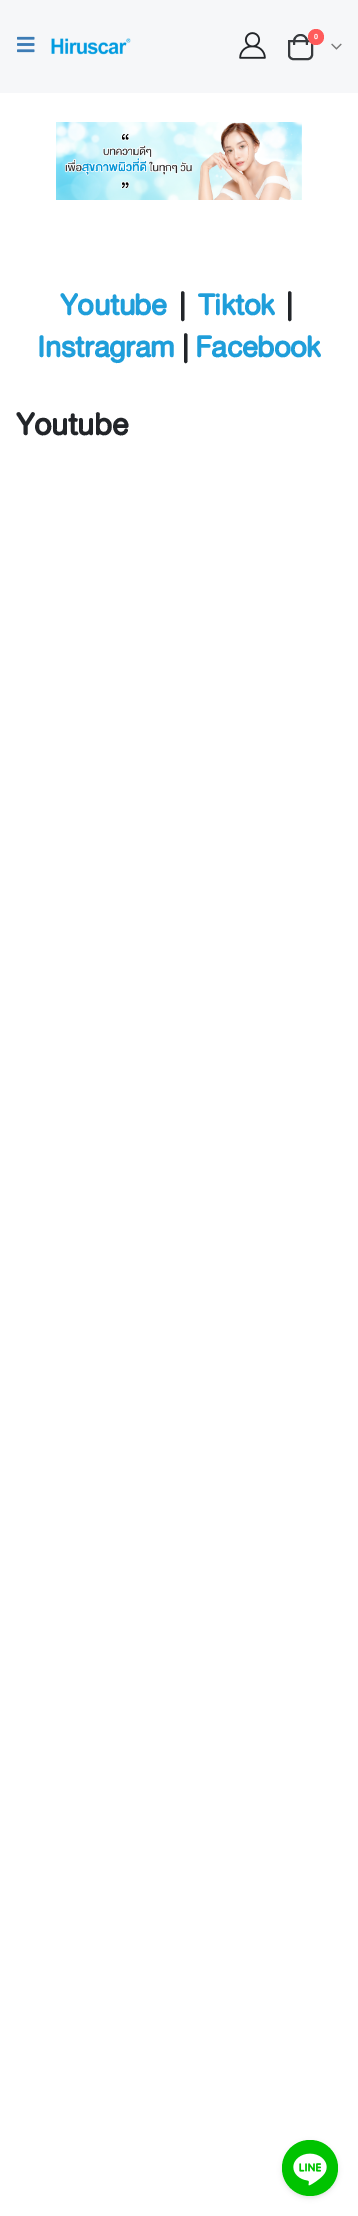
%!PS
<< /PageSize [358 2216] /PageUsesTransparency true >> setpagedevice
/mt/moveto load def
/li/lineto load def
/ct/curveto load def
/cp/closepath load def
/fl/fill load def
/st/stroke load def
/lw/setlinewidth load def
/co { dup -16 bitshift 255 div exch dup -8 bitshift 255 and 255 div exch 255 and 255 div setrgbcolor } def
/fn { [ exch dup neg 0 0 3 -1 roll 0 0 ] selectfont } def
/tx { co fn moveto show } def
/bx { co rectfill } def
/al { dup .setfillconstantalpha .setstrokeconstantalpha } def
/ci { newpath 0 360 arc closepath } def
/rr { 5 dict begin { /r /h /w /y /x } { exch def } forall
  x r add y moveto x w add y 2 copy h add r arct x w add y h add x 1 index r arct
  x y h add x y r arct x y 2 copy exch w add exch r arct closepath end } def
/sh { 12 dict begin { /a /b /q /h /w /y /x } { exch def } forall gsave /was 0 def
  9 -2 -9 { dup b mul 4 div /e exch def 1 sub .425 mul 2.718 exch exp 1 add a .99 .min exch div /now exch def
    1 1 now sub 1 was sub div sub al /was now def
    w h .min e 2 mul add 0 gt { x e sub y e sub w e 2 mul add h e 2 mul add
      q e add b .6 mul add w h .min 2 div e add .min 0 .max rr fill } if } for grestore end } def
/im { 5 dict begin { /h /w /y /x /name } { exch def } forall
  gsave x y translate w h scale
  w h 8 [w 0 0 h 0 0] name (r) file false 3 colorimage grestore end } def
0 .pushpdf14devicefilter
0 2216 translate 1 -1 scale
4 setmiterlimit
0 0 358 2216 16#F6F7F9 bx
(media/1.raw) 17 36 18 17 im
(media/2.raw) 51 38 80 17 im
(media/3.raw) 239 32 27 27 im
16#373A3E co
2 lw
289 41 mt 312 41 li 312 55 li 312 57 310 59 308 59 ct 293 59 li 291 59 289 57 289 55 ct cp st
300.5 34 mt 304.5 34 308 37.5 308 41.5 ct 308 45 li 293 45 li 293 41.5 li 293 37.5 296.5 34 300.5 34 ct cp 300.5 36 mt 306 36 306 41 306 45 ct 295 45 li 295 41 295 36 300.5 36 ct cp eofill
16#FF5B5B co
316 37 8 ci fl
(media/4.raw) 331 43 11 7 im
0 93 358 2123 16#FFFFFF bx
(media/5.raw) 56 122 246 78 im
16#000000 co
282 2142 56 56 28 2.5 .11 sh
16#00C300 co
310 2168 28 ci fl
(media/6.raw) 293 2153 34 33 im
(0) 314 39 /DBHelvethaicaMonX-Bold 10 16#FFFFFF tx
(Youtube) 60 315 /DBHelvethaicaMonX-Bold 42 16#1F9EDA tx
(|) 179 315 /DBHelvethaicaMonX-Bold 42 16#222529 tx
(Tiktok) 198 315 /DBHelvethaicaMonX-Bold 42 16#1F9EDA tx
(|) 286 315 /DBHelvethaicaMonX-Bold 42 16#222529 tx
(Instragram) 37 357 /DBHelvethaicaMonX-Bold 42 16#1F9EDA tx
(|) 182 357 /DBHelvethaicaMonX-Bold 42 16#222529 tx
(Facebook) 195 357 /DBHelvethaicaMonX-Bold 42 16#1F9EDA tx
(Youtube) 16 435 /DBHelvethaicaMonX-Bold 44 16#222529 tx
.poppdf14devicefilter showpage
